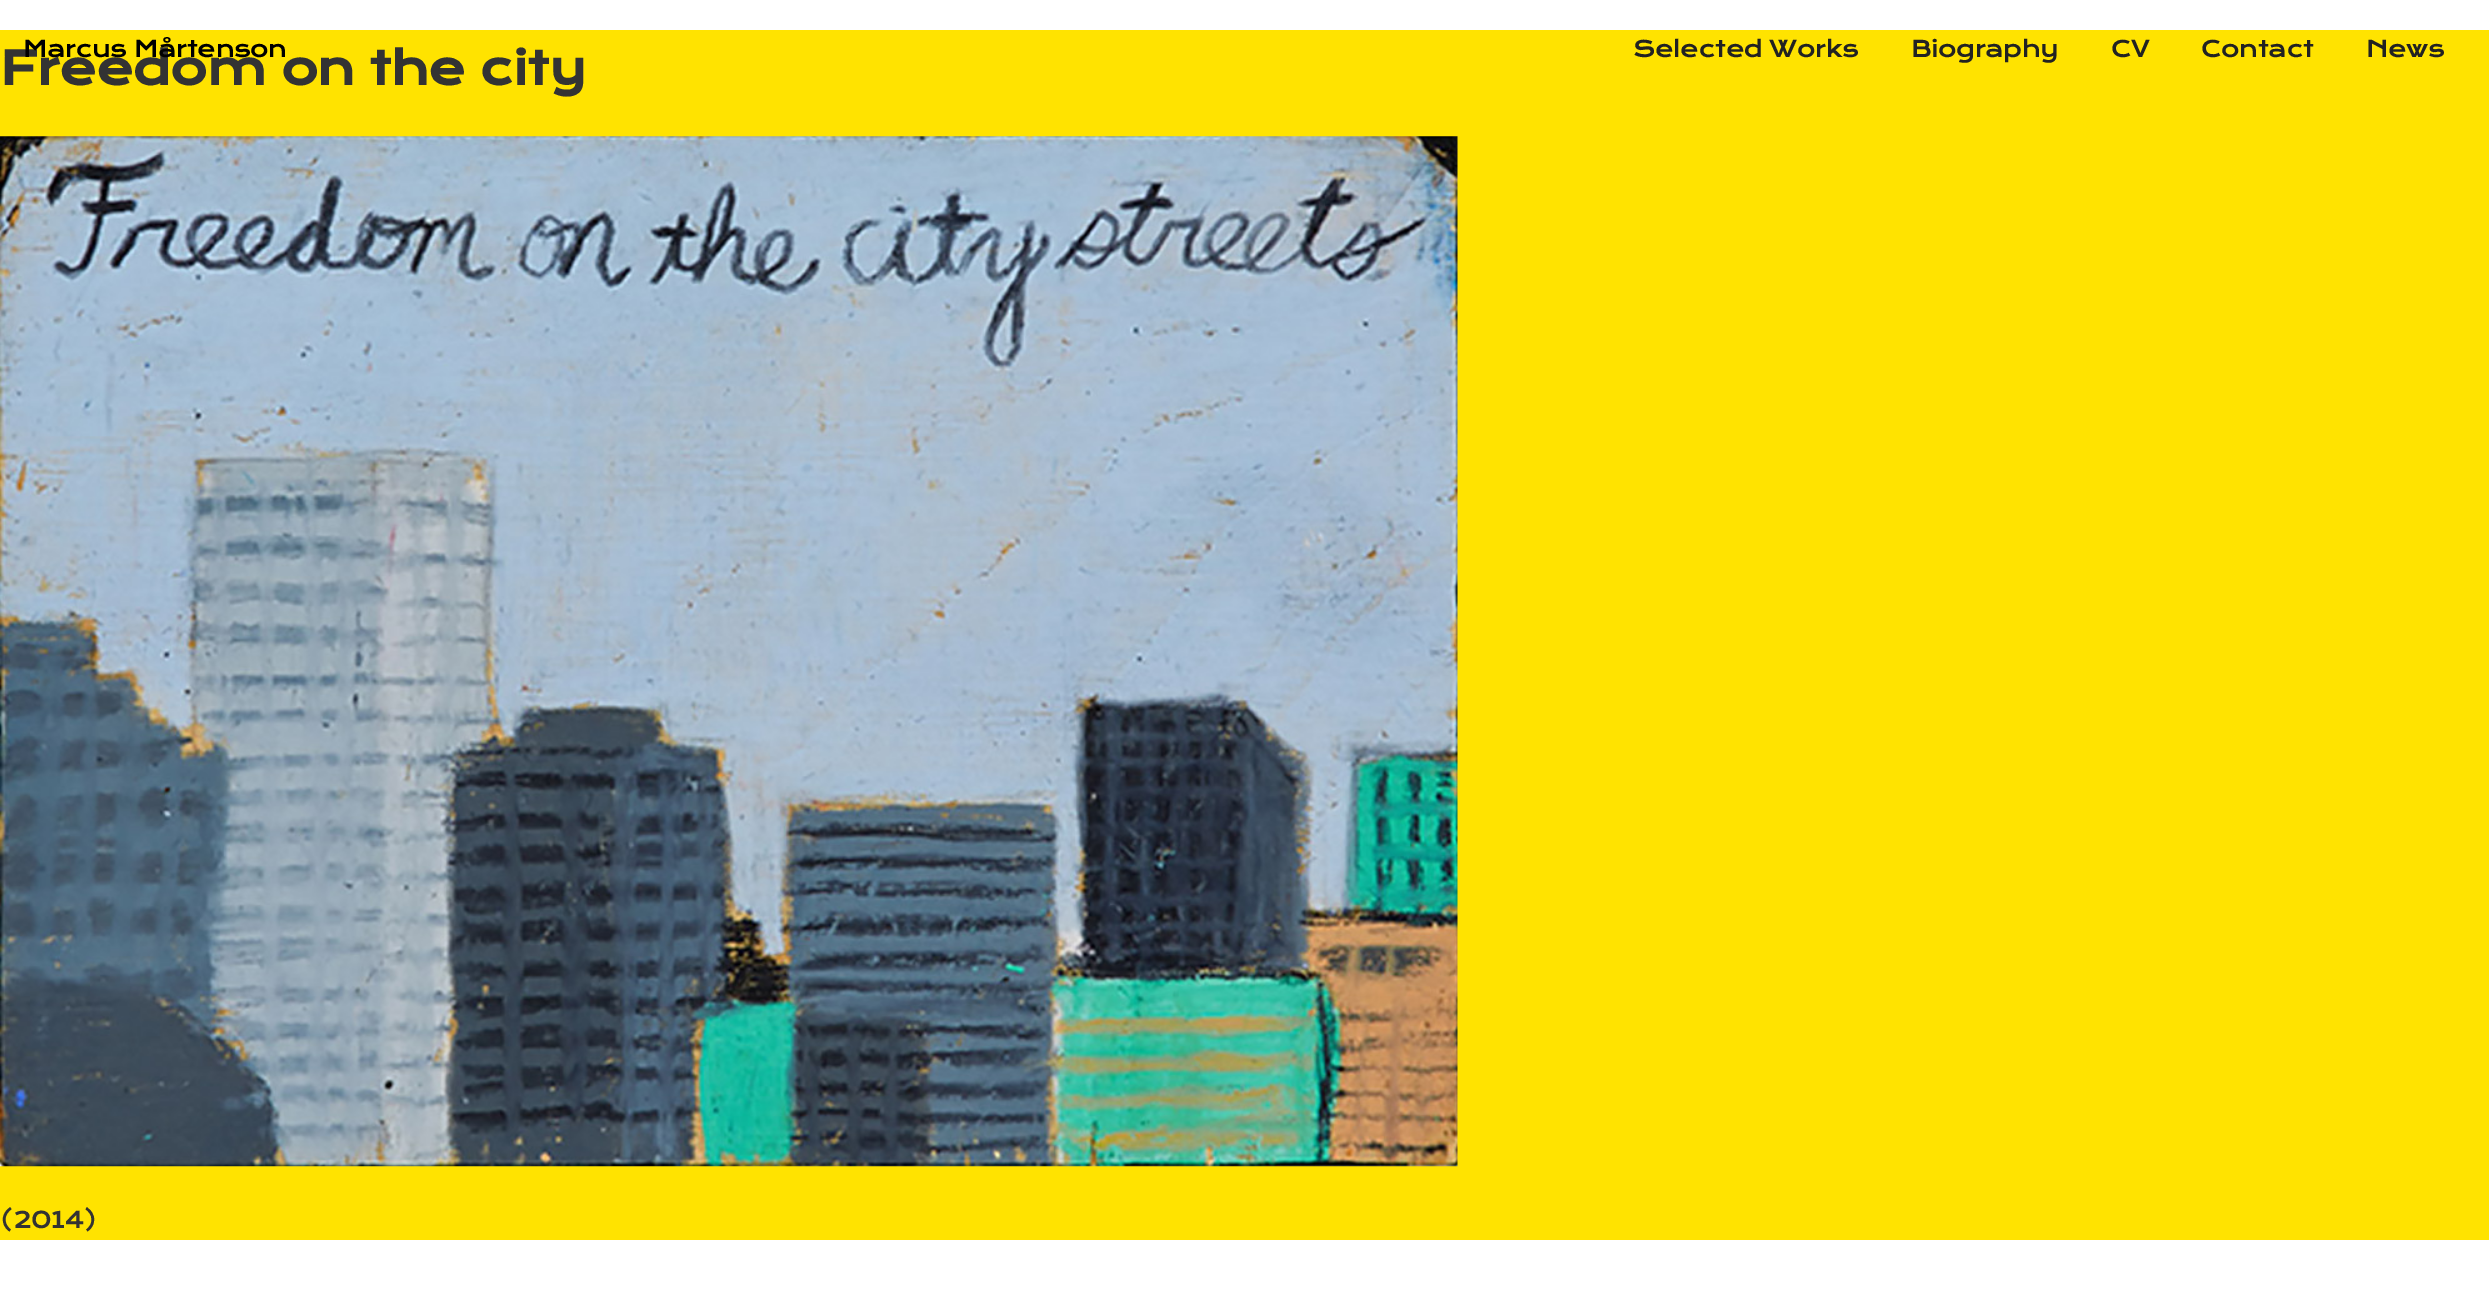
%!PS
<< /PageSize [2489 1294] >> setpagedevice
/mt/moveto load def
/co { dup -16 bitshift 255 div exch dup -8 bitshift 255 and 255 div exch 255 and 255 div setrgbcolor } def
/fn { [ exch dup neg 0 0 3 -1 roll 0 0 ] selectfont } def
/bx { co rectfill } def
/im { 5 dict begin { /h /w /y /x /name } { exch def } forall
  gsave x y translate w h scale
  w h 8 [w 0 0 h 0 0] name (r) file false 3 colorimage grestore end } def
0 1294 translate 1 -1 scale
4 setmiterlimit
0 0 2489 1294 16#FFFFFF bx
0 30 2489 1210 16#FFE300 bx
(media/1.raw) 0 136 1458 1031 im
/KronaOne-Regular 22.5 fn
16#222222 co
1633 57 mt -.5 0 (Selected Works) ashow
1911 57 mt -.5 0 (Biography) ashow
2111 57 mt -.5 0 (CV) ashow
2201 57 mt -.5 0 (Contact) ashow
2366 57 mt -.5 0 (News) ashow
/KronaOne-Bold 45 fn
16#333333 co
0 85 mt -.5 0 (Freedom on the city) ashow
/KronaOne-Regular 22.5 fn
16#000000 co
23 57 mt -.5 0 (Marcus Mårtenson) ashow
16#333333 co
0 1228 mt -.5 0 (\(2014\)) ashow
showpage
